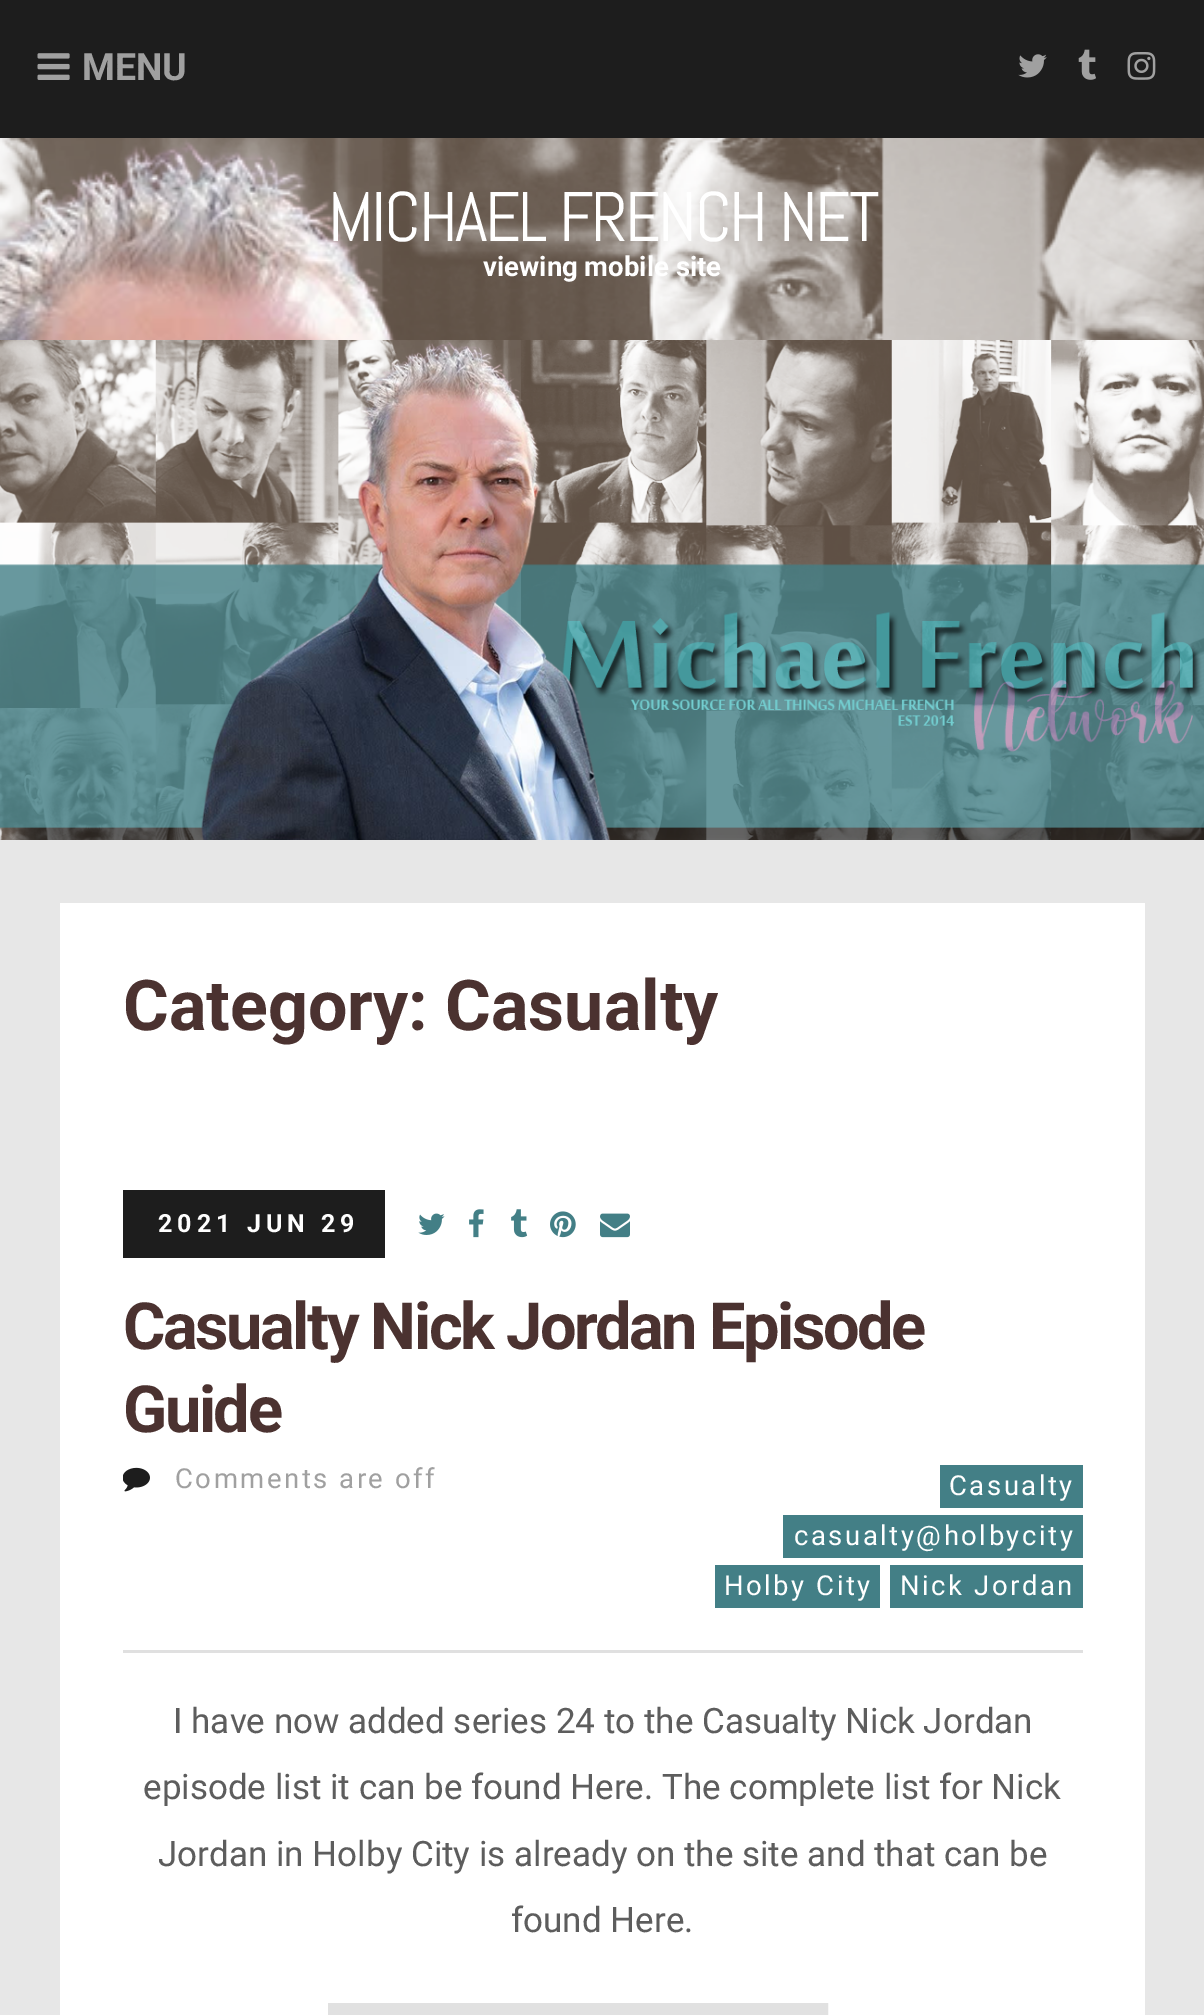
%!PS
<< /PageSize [1204 2015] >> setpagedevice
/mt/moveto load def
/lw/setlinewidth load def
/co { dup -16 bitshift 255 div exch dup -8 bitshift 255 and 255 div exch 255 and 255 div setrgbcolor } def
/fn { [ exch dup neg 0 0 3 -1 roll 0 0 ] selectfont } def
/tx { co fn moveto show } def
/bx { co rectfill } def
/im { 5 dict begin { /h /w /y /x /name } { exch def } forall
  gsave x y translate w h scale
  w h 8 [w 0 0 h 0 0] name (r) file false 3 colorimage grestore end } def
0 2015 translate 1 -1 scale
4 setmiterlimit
0 0 1204 2015 16#E7E7E7 bx
0 0 1204 138 16#1D1D1D bx
(media/1.raw) 37 53 33 27 im
(media/2.raw) 1018 54 29 24 im
(media/3.raw) 1078 49 18 31 im
(media/4.raw) 1127 52 29 28 im
(media/5.raw) 0 138 1204 202 im
(media/6.raw) 0 340 1204 500 im
60 903 1085 1112 16#FFFFFF bx
123 1190 262 68 16#1D1D1D bx
(media/7.raw) 418 1213 27 22 im
(media/8.raw) 469 1209 15 29 im
(media/9.raw) 511 1209 17 29 im
(media/10.raw) 550 1211 26 27 im
(media/11.raw) 600 1213 30 25 im
123 1650 960 3 16#E0E0E0 bx
(media/12.raw) 123 1467 27 25 im
940 1465 143 43 16#437F86 bx
783 1515 300 43 16#437F86 bx
715 1565 165 43 16#437F86 bx
890 1565 193 43 16#437F86 bx
16#E1E1E1 co
13 lw
334.5 2009.5 487 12 rectstroke
(MENU) 82 80 /Roboto-Bold 37.5 16#A0A0A0 tx
/Abel-Regular 70 fn
16#FFFFFF co
328 241 mt -2.5 0 (MICHAEL FRENCH NET) ashow
(viewing mobile site) 483 276 /Roboto-Bold 27.5 16#FFFFFF tx
(Category: Casualty) 123 1030 /Roboto-Bold 70 16#4B3230 tx
/Roboto-Bold 25 fn
16#FFFFFF co
158 1232 mt 5 0 (2021 JUN 29) ashow
/Roboto-Bold 65 fn
16#4B3230 co
123 1349 mt -2.5 0 (Casualty Nick Jordan Episode) ashow
123 1432 mt -2.5 0 (Guide) ashow
/Roboto-Regular 27.5 fn
16#A0A0A0 co
175 1488 mt 2.5 0 (Comments are off) ashow
16#FFFFFF co
949 1495 mt 2.5 0 (Casualty) ashow
794 1545 mt 2.5 0 (casualty@holbycity) ashow
724 1595 mt 2.5 0 (Holby City) ashow
900 1595 mt 2.5 0 (Nick Jordan) ashow
(I have now added series 24 to the Casualty Nick Jordan) 173 1733 /Roboto-Regular 35 16#5D5D5D tx
(episode list it can be found Here. The complete list for Nick) 143 1799 /Roboto-Regular 35 16#5D5D5D tx
(Jordan in Holby City is already on the site and that can be) 158 1866 /Roboto-Regular 35 16#5D5D5D tx
(found Here.) 511 1932 /Roboto-Regular 35 16#5D5D5D tx
showpage
